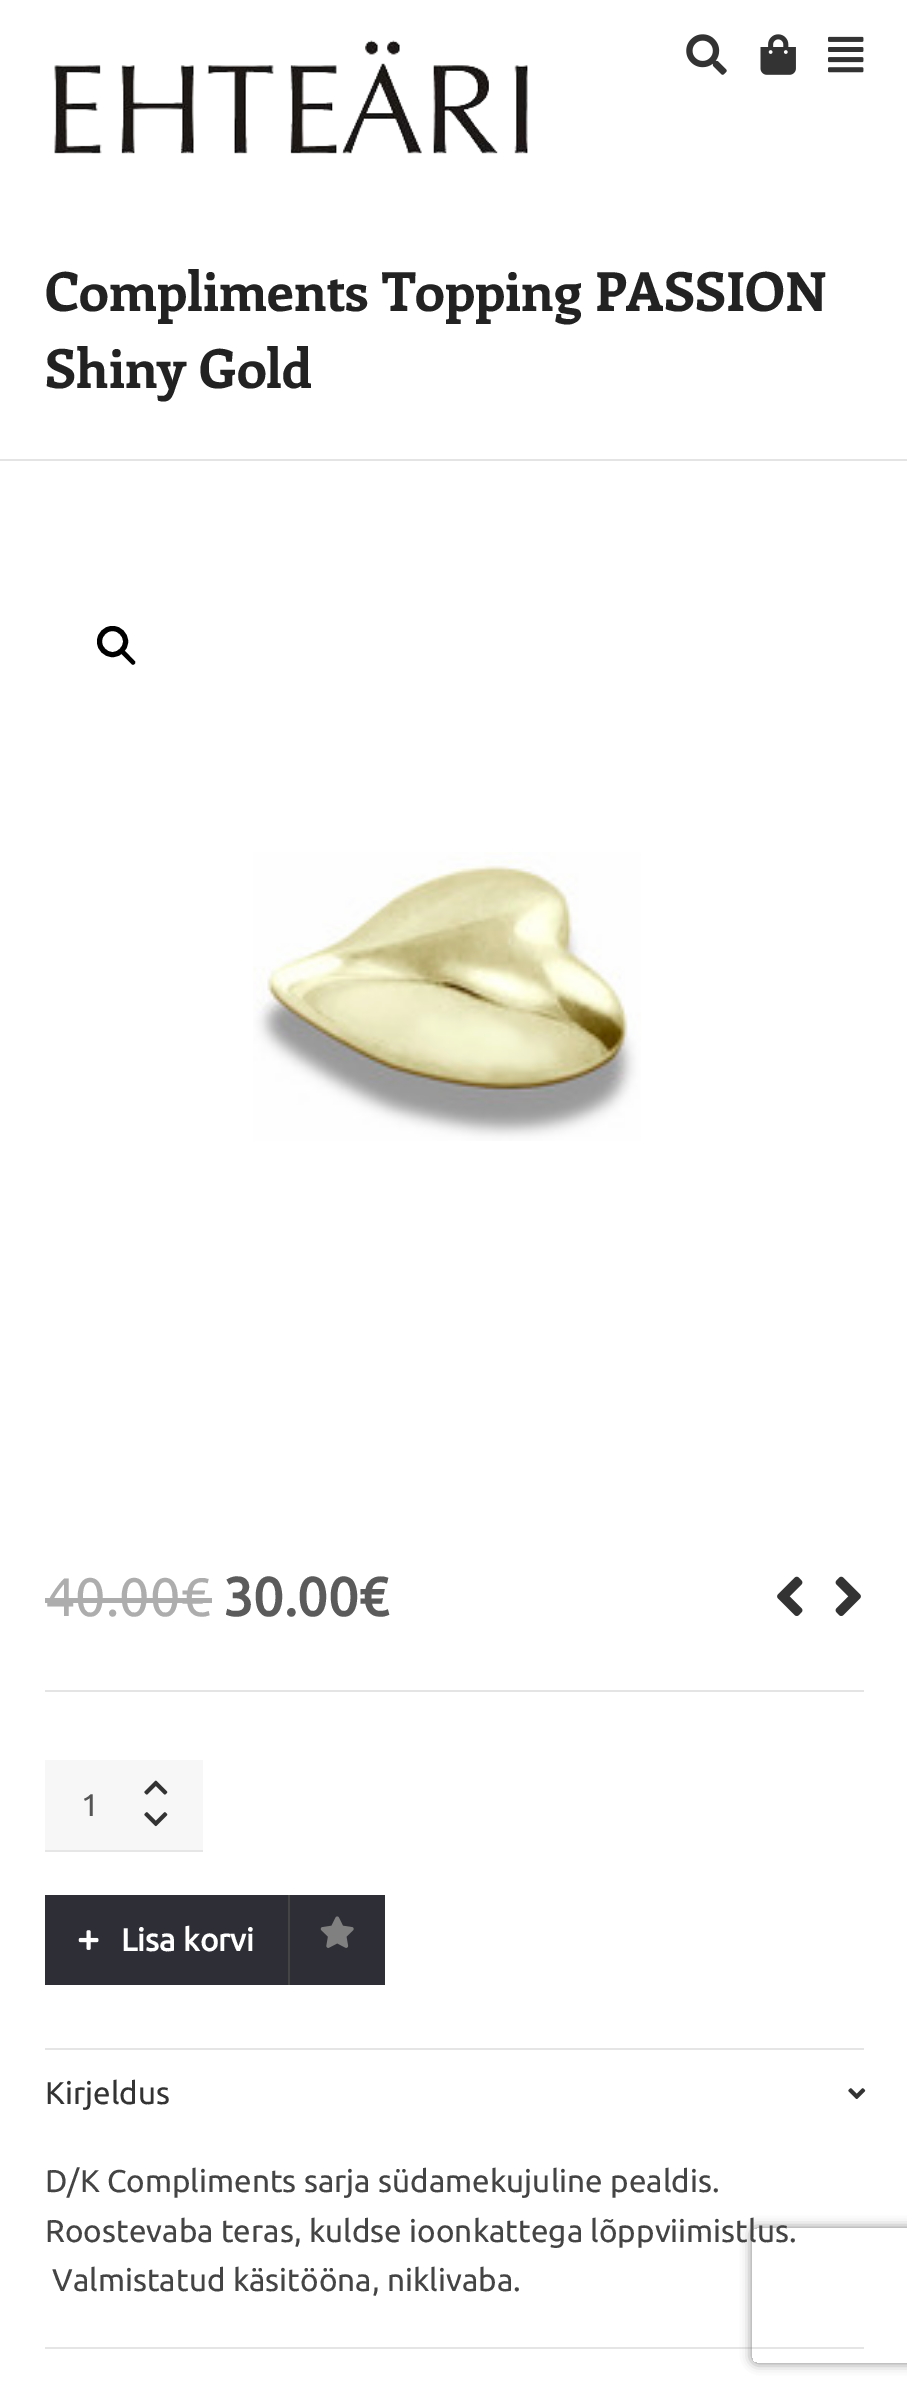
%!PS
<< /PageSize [907 2394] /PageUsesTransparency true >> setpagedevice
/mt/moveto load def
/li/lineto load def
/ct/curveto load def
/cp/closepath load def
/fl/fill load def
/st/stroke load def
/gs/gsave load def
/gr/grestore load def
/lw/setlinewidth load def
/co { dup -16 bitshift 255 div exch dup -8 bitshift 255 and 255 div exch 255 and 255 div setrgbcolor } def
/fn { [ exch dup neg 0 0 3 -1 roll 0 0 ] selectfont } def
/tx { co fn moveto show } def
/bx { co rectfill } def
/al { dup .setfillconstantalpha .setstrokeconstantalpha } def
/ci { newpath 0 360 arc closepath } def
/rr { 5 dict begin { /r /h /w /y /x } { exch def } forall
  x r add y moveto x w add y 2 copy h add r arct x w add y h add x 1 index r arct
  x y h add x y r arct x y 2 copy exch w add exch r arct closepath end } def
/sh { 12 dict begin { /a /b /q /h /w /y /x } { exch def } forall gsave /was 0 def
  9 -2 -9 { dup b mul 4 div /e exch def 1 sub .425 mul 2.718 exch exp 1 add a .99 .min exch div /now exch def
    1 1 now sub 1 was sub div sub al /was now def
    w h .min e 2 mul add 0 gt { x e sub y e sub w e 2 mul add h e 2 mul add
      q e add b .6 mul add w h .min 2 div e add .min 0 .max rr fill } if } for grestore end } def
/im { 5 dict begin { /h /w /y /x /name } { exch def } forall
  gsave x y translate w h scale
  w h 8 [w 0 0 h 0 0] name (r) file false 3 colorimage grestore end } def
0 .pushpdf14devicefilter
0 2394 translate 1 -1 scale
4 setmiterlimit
0 0 907 2394 16#FFFFFF bx
(media/1.raw) 54 40 474 114 im
(media/2.raw) 686 34 41 41 im
(media/3.raw) 760 34 36 41 im
(media/4.raw) 828 36 36 37 im
0 459 907 2 16#E4E4E4 bx
16#000000 co
5 lw
112.5 641.5 13 ci st
122 651 mt 123 650.5 124 650.5 125 651 ct 134.5 661 li 135.5 661.5 135.5 663 134.5 664 ct 133.5 665 132.5 665 131.5 664 ct 122 654.5 li 121 653.5 121 652 122 651 ct cp fl
(media/5.raw) 253 852 388 289 im
45 1690 819 2 16#E4E4E4 bx
45 1598 167 5 16#ADADAD bx
(media/6.raw) 777 1576 26 40 im
(media/7.raw) 835 1576 26 40 im
16#E6E6E6 co
45 1850 mt 45 1852 li 203 1852 li 203 1762 li 202 1762 li 202 1850 li cp fl
45 1760 158 90 16#F7F7F7 bx
(media/8.raw) 144 1780 24 15 im
(media/9.raw) 144 1812 24 15 im
45 1895 243 90 16#2E2E36 bx
(media/10.raw) 78 1930 21 20 im
290 1895 95 90 16#2E2E36 bx
288 1895 2 90 16#444444 bx
(media/11.raw) 320 1916 34 32 im
45 2048 819 2 16#E5E5E5 bx
45 2347 819 2 16#E5E5E5 bx
(media/12.raw) 848 2088 18 11 im
gs
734 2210 mt 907 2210 li 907 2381 li 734 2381 li cp 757 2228 mt 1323 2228 li 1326 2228 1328 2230 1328 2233 ct 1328 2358 li 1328 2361 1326 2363 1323 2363 ct 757 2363 li 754 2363 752 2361 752 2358 ct 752 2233 li 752 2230 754 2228 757 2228 ct cp eoclip newpath
16#808080 co
752 2228 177 135 5 5.5 1 sh
gr
(Compliments Topping PASSION) 45 311 /Enriqueta-Bold 54 16#222222 tx
(Shiny Gold) 45 388 /Enriqueta-Bold 54 16#222222 tx
(40.00€) 45 1616 /Ubuntu-Regular 54 16#ADADAD tx
(30.00€) 223 1616 /Ubuntu-Bold 54 16#5B5B5B tx
(1) 81 1816 /Ubuntu-Regular 31.5 16#555555 tx
(Lisa korvi) 121 1951 /Ubuntu-Bold 31.5 16#FFFFFF tx
(Kirjeldus) 45 2104 /Ubuntu-Regular 31.5 16#333333 tx
(D/K Compliments sarja südamekujuline pealdis.) 45 2192 /Ubuntu-Regular 31.5 16#444444 tx
(Roostevaba teras, kuldse ioonkattega lõppviimistlus.) 45 2242 /Ubuntu-Regular 31.5 16#444444 tx
(Valmistatud käsitööna, niklivaba.) 52 2291 /Ubuntu-Regular 31.5 16#444444 tx
.poppdf14devicefilter showpage
